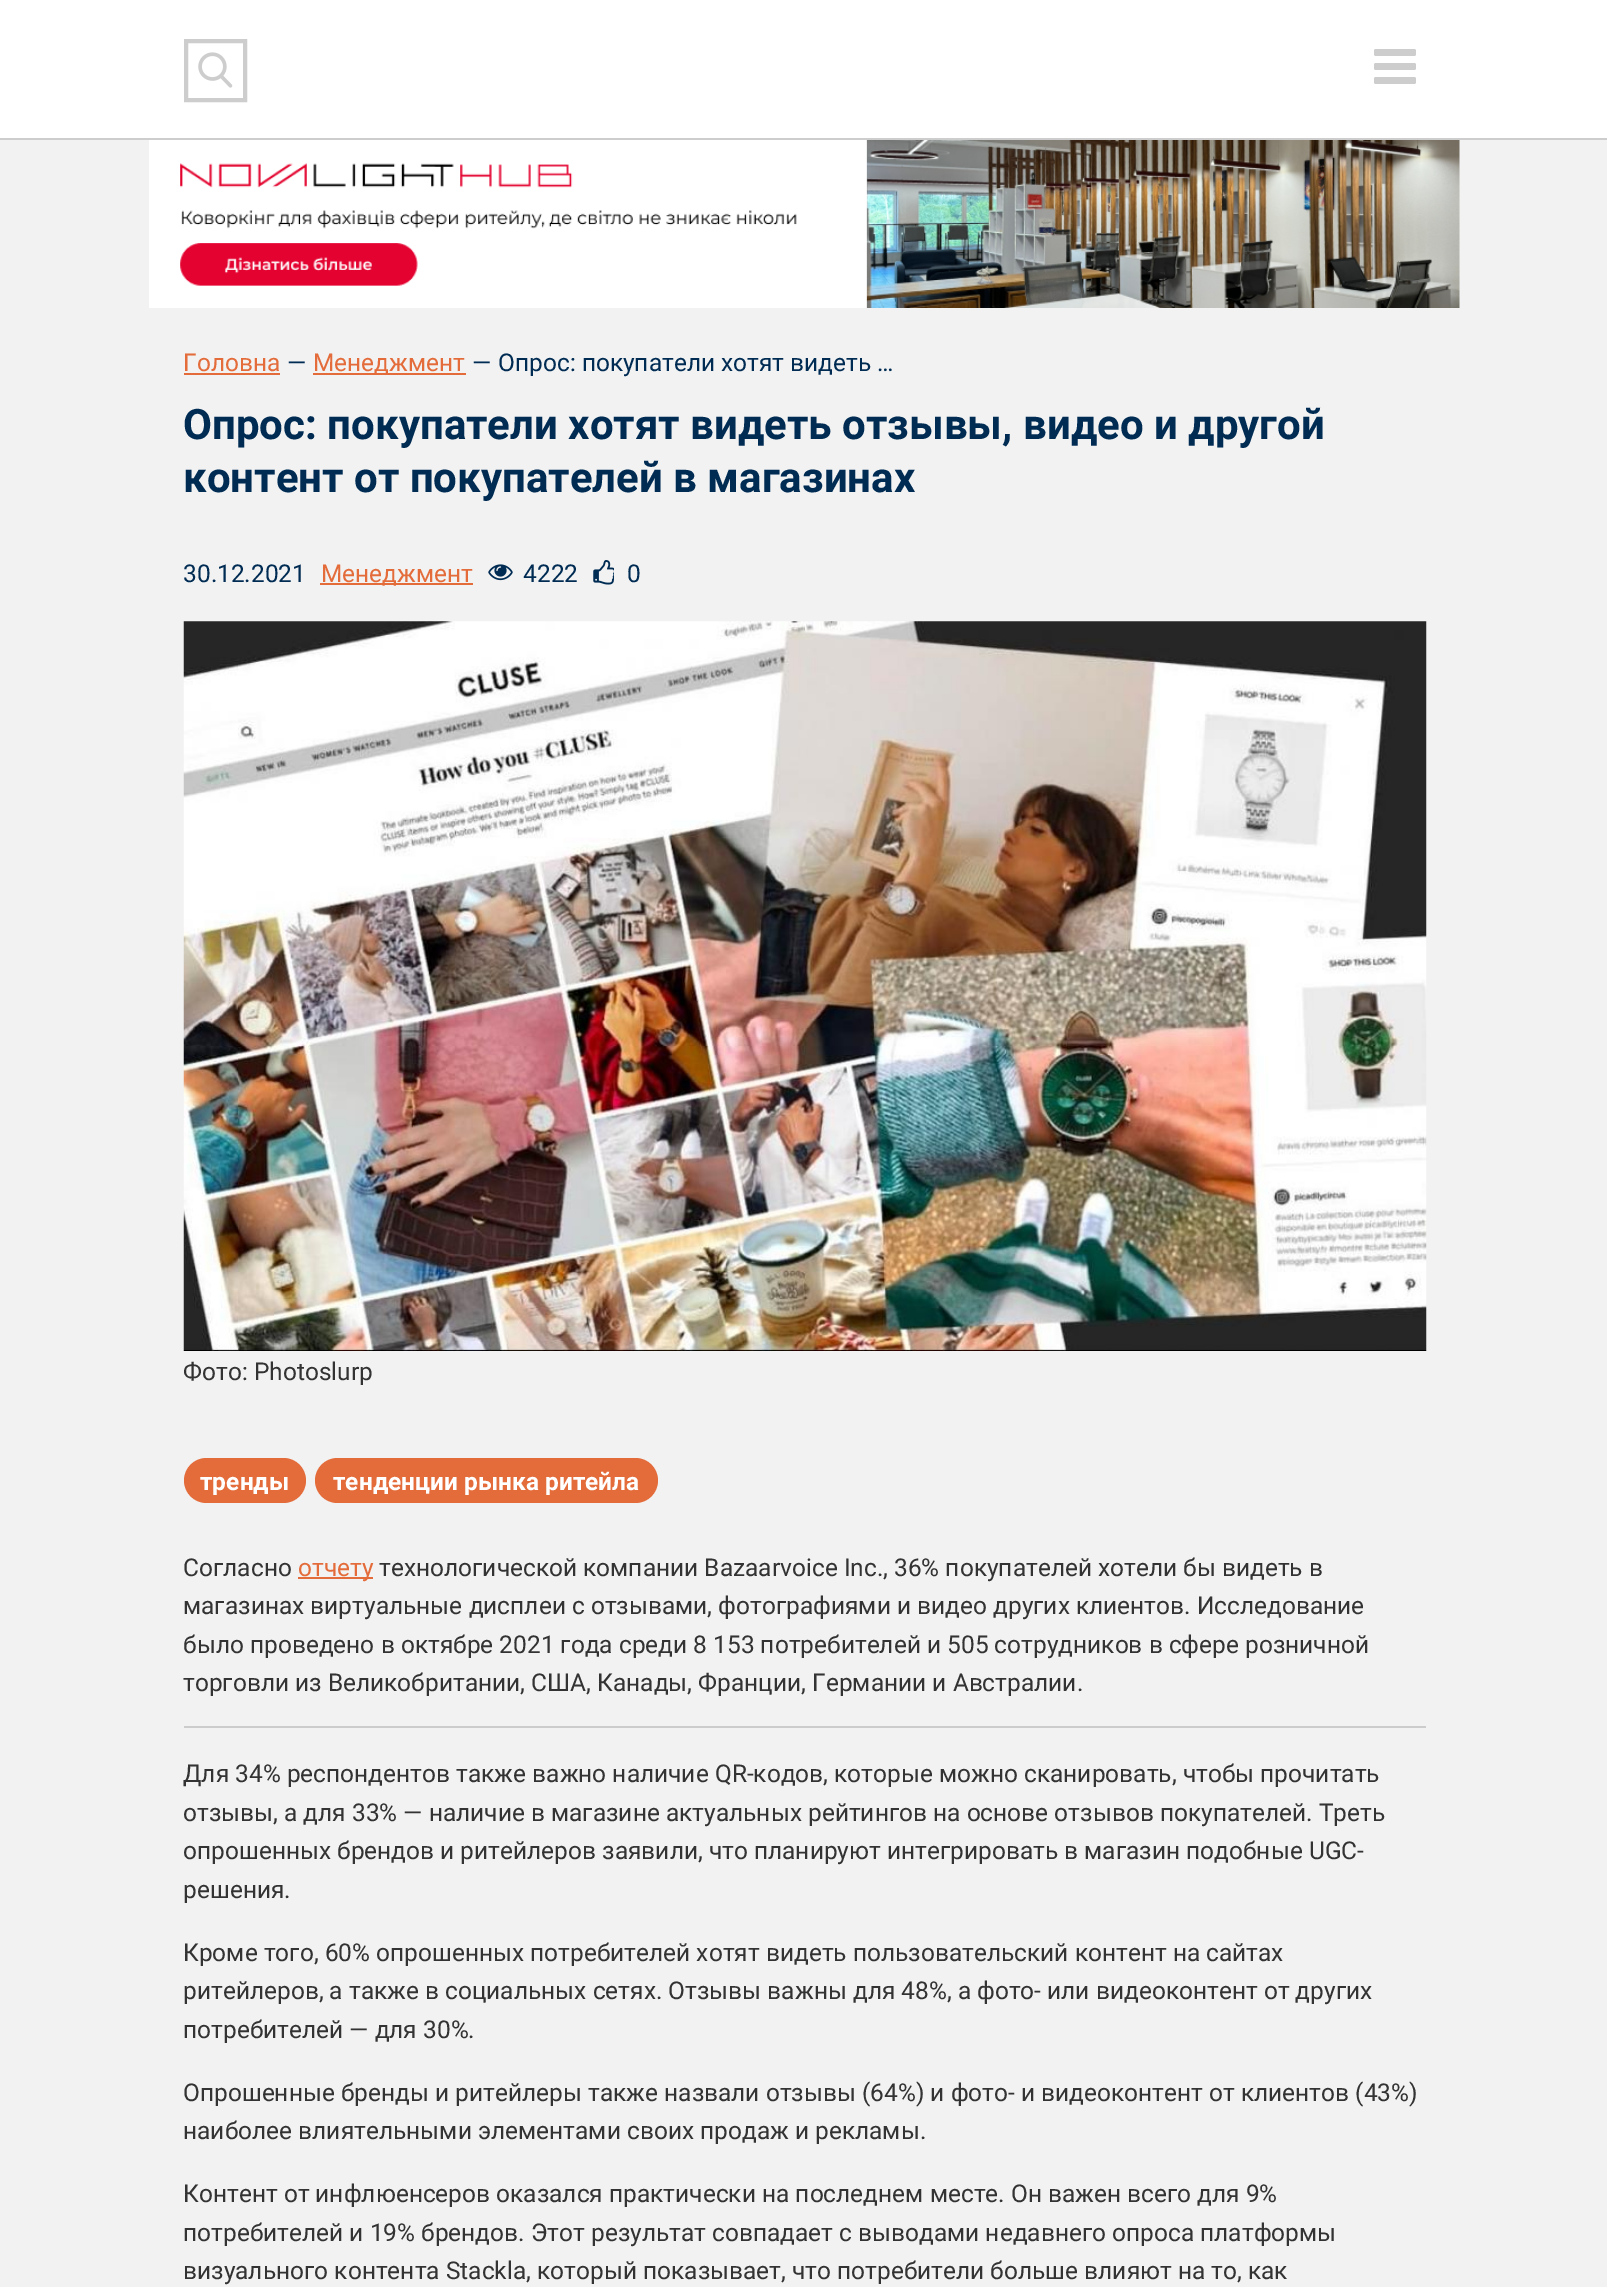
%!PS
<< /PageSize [1607 2287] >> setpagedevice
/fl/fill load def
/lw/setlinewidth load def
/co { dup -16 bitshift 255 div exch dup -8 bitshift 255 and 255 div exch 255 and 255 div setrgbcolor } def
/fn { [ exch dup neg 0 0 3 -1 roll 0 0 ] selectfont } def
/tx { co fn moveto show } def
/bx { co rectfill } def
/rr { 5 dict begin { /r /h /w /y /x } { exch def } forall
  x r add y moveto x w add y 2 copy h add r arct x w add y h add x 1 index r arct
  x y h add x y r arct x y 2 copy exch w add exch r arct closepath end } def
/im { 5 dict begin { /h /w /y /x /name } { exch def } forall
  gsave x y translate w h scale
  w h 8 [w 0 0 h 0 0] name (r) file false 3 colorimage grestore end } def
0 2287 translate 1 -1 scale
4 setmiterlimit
0 0 1607 2287 16#F2F2F2 bx
0 0 1607 138 16#FFFFFF bx
0 138 1607 2 16#CDCDCD bx
4 lw
186 41 59 59 rectstroke
(media/1.raw) 198 52 35 36 im
1374 63 42 7 2 rr fl
1374 49 42 7 2 rr fl
1374 77 42 7 2 rr fl
(media/2.raw) 149 140 1311 168 im
184 373 96 2 16#E46C3B bx
313 373 153 2 16#E46C3B bx
320 583 153 2 16#E46C3B bx
(media/3.raw) 488 564 25 17 im
(media/4.raw) 593 560 21 25 im
(media/5.raw) 183 621 1244 730 im
184 1458 122 45 22.5 rr fl
315 1458 343 45 22.5 rr fl
298 1577 75 2 16#E46C3B bx
184 1726 1242 2 16#CCCCCC bx
(Головна) 183 371 /Roboto-Regular 24.5 16#E46C3B tx
(—) 287 371 /Roboto-Regular 24.5 16#002C54 tx
(Менеджмент) 313 371 /Roboto-Regular 24.5 16#E46C3B tx
(—) 472 371 /Roboto-Regular 24.5 16#002C54 tx
(Опрос: покупатели хотят видеть …) 498 371 /Roboto-Regular 24.5 16#002C54 tx
(Опрос: покупатели хотят видеть отзывы, видео и другой) 183 439 /Roboto-Bold 42 16#002C54 tx
(контент от покупателей в магазинах) 183 492 /Roboto-Bold 42 16#002C54 tx
(30.12.2021) 183 582 /Roboto-Regular 24.5 16#002C54 tx
(Менеджмент) 321 582 /Roboto-Regular 24.5 16#E46C3B tx
(4222) 523 582 /Roboto-Regular 24.5 16#002C54 tx
(0) 627 582 /Roboto-Regular 24.5 16#002C54 tx
(Фото: Photoslurp) 183 1380 /Roboto-Regular 24.5 16#333333 tx
(тренды) 200 1490 /Roboto-Bold 24.5 16#FFFFFF tx
(тенденции рынка ритейла) 333 1490 /Roboto-Bold 24.5 16#FFFFFF tx
(Согласно) 183 1576 /Roboto-Regular 24.5 16#333333 tx
(отчету) 298 1576 /Roboto-Regular 24.5 16#E46C3B tx
(технологической компании Bazaarvoice Inc., 36% покупателей хотели бы видеть в) 379 1576 /Roboto-Regular 24.5 16#333333 tx
(магазинах виртуальные дисплеи с отзывами, фотографиями и видео других клиентов. Исследование) 183 1614 /Roboto-Regular 24.5 16#333333 tx
(было проведено в октябре 2021 года среди 8 153 потребителей и 505 сотрудников в сфере розничной) 183 1653 /Roboto-Regular 24.5 16#333333 tx
(торговли из Великобритании, США, Канады, Франции, Германии и Австралии.) 183 1691 /Roboto-Regular 24.5 16#333333 tx
(Для 34% респондентов также важно наличие QR-кодов, которые можно сканировать, чтобы прочитать) 183 1782 /Roboto-Regular 24.5 16#333333 tx
(отзывы, а для 33% — наличие в магазине актуальных рейтингов на основе отзывов покупателей. Треть) 183 1821 /Roboto-Regular 24.5 16#333333 tx
(опрошенных брендов и ритейлеров заявили, что планируют интегрировать в магазин подобные UGC-) 183 1859 /Roboto-Regular 24.5 16#333333 tx
(решения.) 183 1898 /Roboto-Regular 24.5 16#333333 tx
(Кроме того, 60% опрошенных потребителей хотят видеть пользовательский контент на сайтах) 183 1961 /Roboto-Regular 24.5 16#333333 tx
(ритейлеров, а также в социальных сетях. Отзывы важны для 48%, а фото- или видеоконтент от других) 183 1999 /Roboto-Regular 24.5 16#333333 tx
(потребителей — для 30%.) 183 2038 /Roboto-Regular 24.5 16#333333 tx
(Опрошенные бренды и ритейлеры также назвали отзывы \(64%\) и фото- и видеоконтент от клиентов \(43%\)) 183 2101 /Roboto-Regular 24.5 16#333333 tx
(наиболее влиятельными элементами своих продаж и рекламы.) 183 2139 /Roboto-Regular 24.5 16#333333 tx
(Контент от инфлюенсеров оказался практически на последнем месте. Он важен всего для 9%) 183 2202 /Roboto-Regular 24.5 16#333333 tx
(потребителей и 19% брендов. Этот результат совпадает с выводами недавнего опроса платформы) 183 2241 /Roboto-Regular 24.5 16#333333 tx
(визуального контента Stackla, который показывает, что потребители больше влияют на то, как) 183 2279 /Roboto-Regular 24.5 16#333333 tx
showpage
